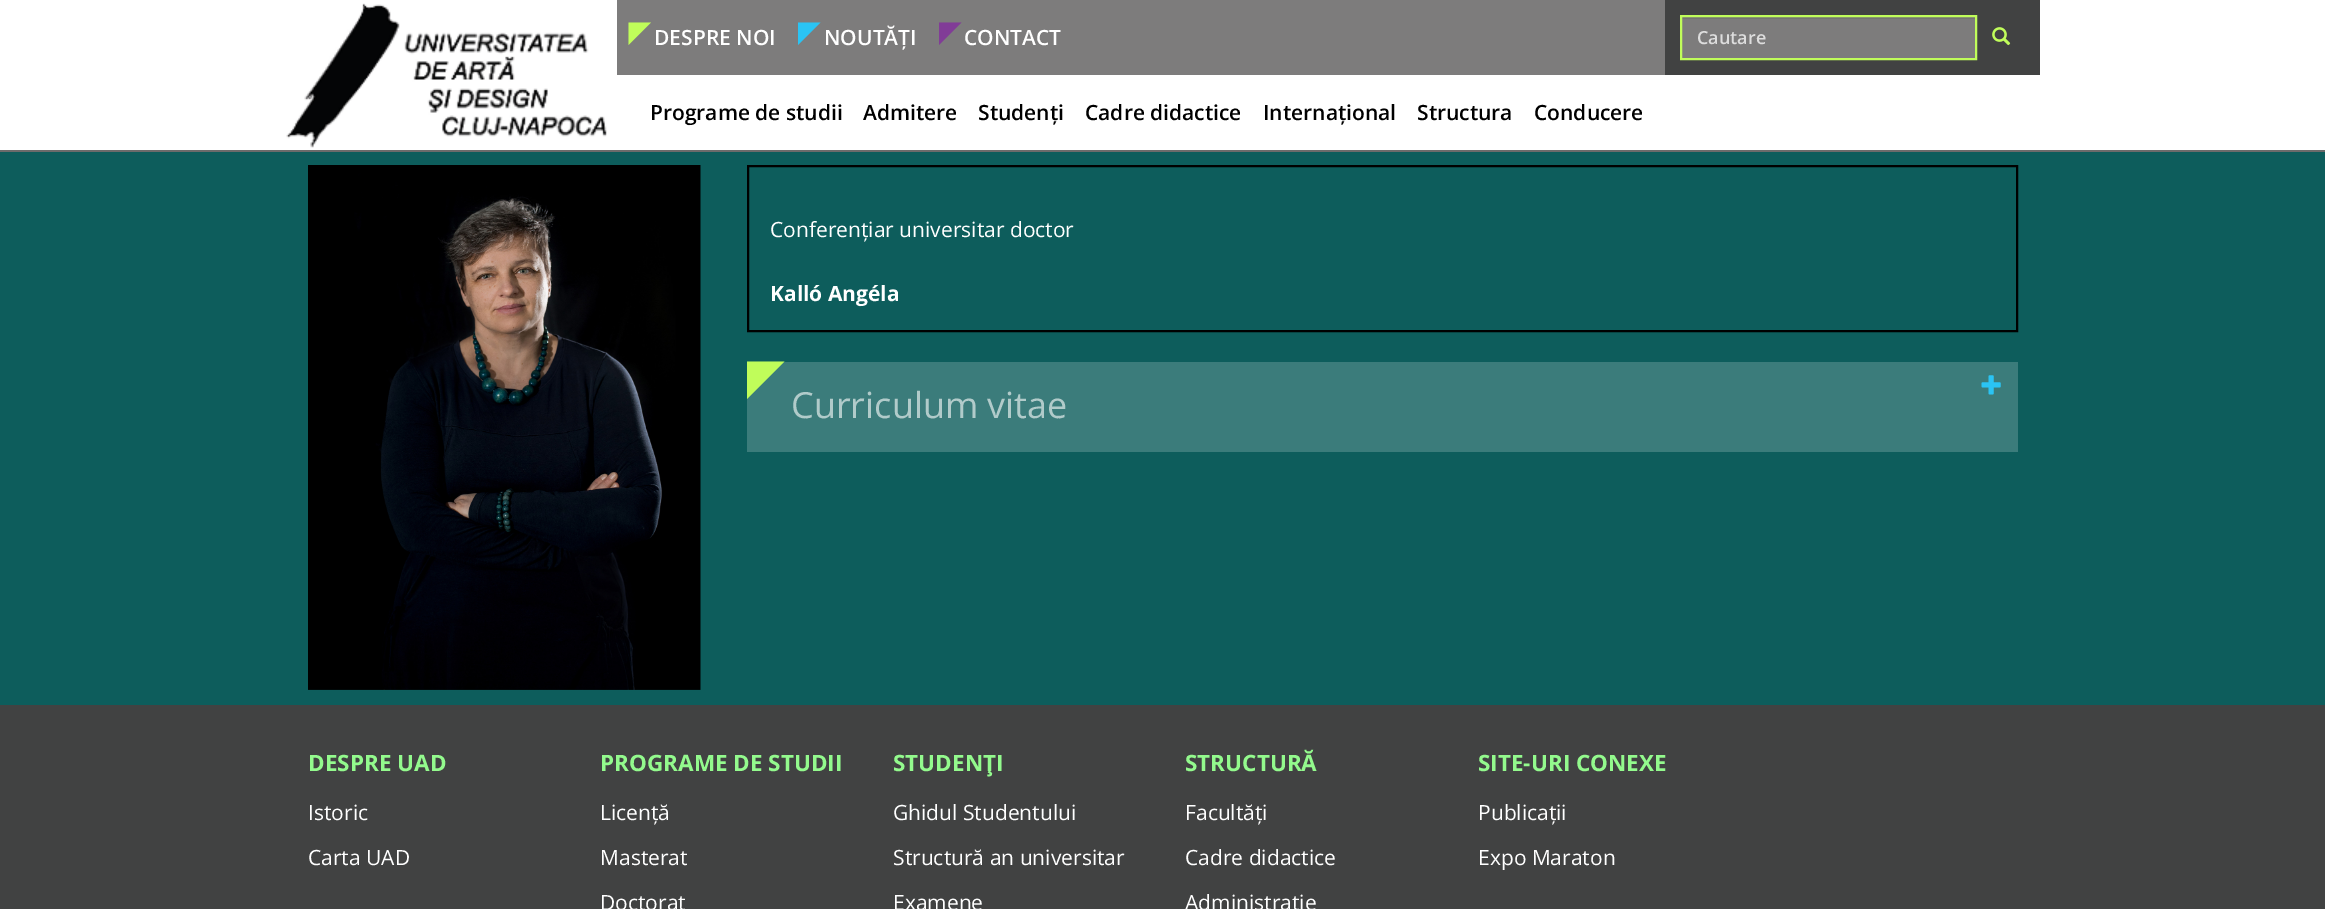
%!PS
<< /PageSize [2325 909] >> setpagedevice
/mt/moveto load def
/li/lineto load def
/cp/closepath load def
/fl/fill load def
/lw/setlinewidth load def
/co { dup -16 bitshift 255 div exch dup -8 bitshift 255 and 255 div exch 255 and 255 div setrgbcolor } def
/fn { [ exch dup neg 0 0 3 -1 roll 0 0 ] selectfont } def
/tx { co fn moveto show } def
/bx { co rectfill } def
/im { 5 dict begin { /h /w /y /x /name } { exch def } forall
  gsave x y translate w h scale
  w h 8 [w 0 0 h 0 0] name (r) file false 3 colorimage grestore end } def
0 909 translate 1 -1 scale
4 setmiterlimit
0 0 2325 909 16#FFFFFF bx
0 150 2325 2 16#6C6B6B bx
(media/1.raw) 286 3 321 145 im
617 0 1048 75 16#7D7C7C bx
16#C0FD5A co
628.5 22.5 mt 651 22.5 li 628.5 45 li cp fl
16#2AC4F4 co
798 22.5 mt 820.5 22.5 li 798 45 li cp fl
16#813C97 co
939 22.5 mt 961.5 22.5 li 939 45 li cp fl
1665 0 375 75 16#414242 bx
1682 19 293 39 16#7D7C7C bx
1682 17 294 2 16#747373 bx
16#C0FD5A co
2 lw
1681 16 295 43 rectstroke
(media/2.raw) 1992 27 19 19 im
0 152 2325 553 16#0D5D5C bx
(media/3.raw) 308 165 393 525 im
16#000000 co
748 166 1269 165 rectstroke
747 362 1271 90 16#3B7C7B bx
16#C0FD5A co
747 361.5 mt 784.5 361.5 li 747 399 li cp fl
(media/4.raw) 1981 375 20 20 im
0 705 2325 204 16#414242 bx
(DESPRE NOI) 654 45 /OpenSans-SemiBold 21 16#FFFFFF tx
(NOUTĂȚI) 824 45 /OpenSans-SemiBold 21 16#FFFFFF tx
(CONTACT) 964 45 /OpenSans-SemiBold 21 16#FFFFFF tx
(Cautare) 1697 44 /OpenSans-SemiBold 18 16#DDDDDD tx
(Programe de studii) 650 120 /OpenSans-SemiBold 21 16#000000 tx
(Admitere) 863 120 /OpenSans-SemiBold 21 16#000000 tx
(Studenți) 978 120 /OpenSans-SemiBold 21 16#000000 tx
(Cadre didactice) 1085 120 /OpenSans-SemiBold 21 16#000000 tx
(Internațional) 1263 120 /OpenSans-SemiBold 21 16#000000 tx
(Structura) 1417 120 /OpenSans-SemiBold 21 16#000000 tx
(Conducere) 1534 120 /OpenSans-SemiBold 21 16#000000 tx
(Conferențiar universitar doctor) 770 237 /OpenSans-Regular 21 16#FFFFFF tx
(Kalló Angéla) 770 301 /OpenSans-Bold 21 16#FFFFFF tx
(Curriculum vitae) 791 418 /OpenSans-Regular 36 16#B1CBCA tx
(DESPRE UAD) 308 771 /OpenSans-Bold 22.5 16#93FA8D tx
(Istoric) 308 820 /OpenSans-Regular 21 16#FFFFFF tx
(Carta UAD) 308 865 /OpenSans-Regular 21 16#FFFFFF tx
(PROGRAME DE STUDII) 600 771 /OpenSans-Bold 22.5 16#93FA8D tx
(Licență) 600 820 /OpenSans-Regular 21 16#FFFFFF tx
(Masterat) 600 865 /OpenSans-Regular 21 16#FFFFFF tx
(Doctorat) 600 910 /OpenSans-Regular 21 16#FFFFFF tx
(STUDENŢI) 893 771 /OpenSans-Bold 22.5 16#93FA8D tx
(Ghidul Studentului) 893 820 /OpenSans-Regular 21 16#FFFFFF tx
(Structură an universitar) 893 865 /OpenSans-Regular 21 16#FFFFFF tx
(Examene) 893 910 /OpenSans-Regular 21 16#FFFFFF tx
(STRUCTURĂ) 1185 771 /OpenSans-Bold 22.5 16#93FA8D tx
(Facultăți) 1185 820 /OpenSans-Regular 21 16#FFFFFF tx
(Cadre didactice) 1185 865 /OpenSans-Regular 21 16#FFFFFF tx
(Administrație) 1185 910 /OpenSans-Regular 21 16#FFFFFF tx
(SITE-URI CONEXE) 1478 771 /OpenSans-Bold 22.5 16#93FA8D tx
(Publicații) 1478 820 /OpenSans-Regular 21 16#FFFFFF tx
(Expo Maraton) 1478 865 /OpenSans-Regular 21 16#FFFFFF tx
showpage
